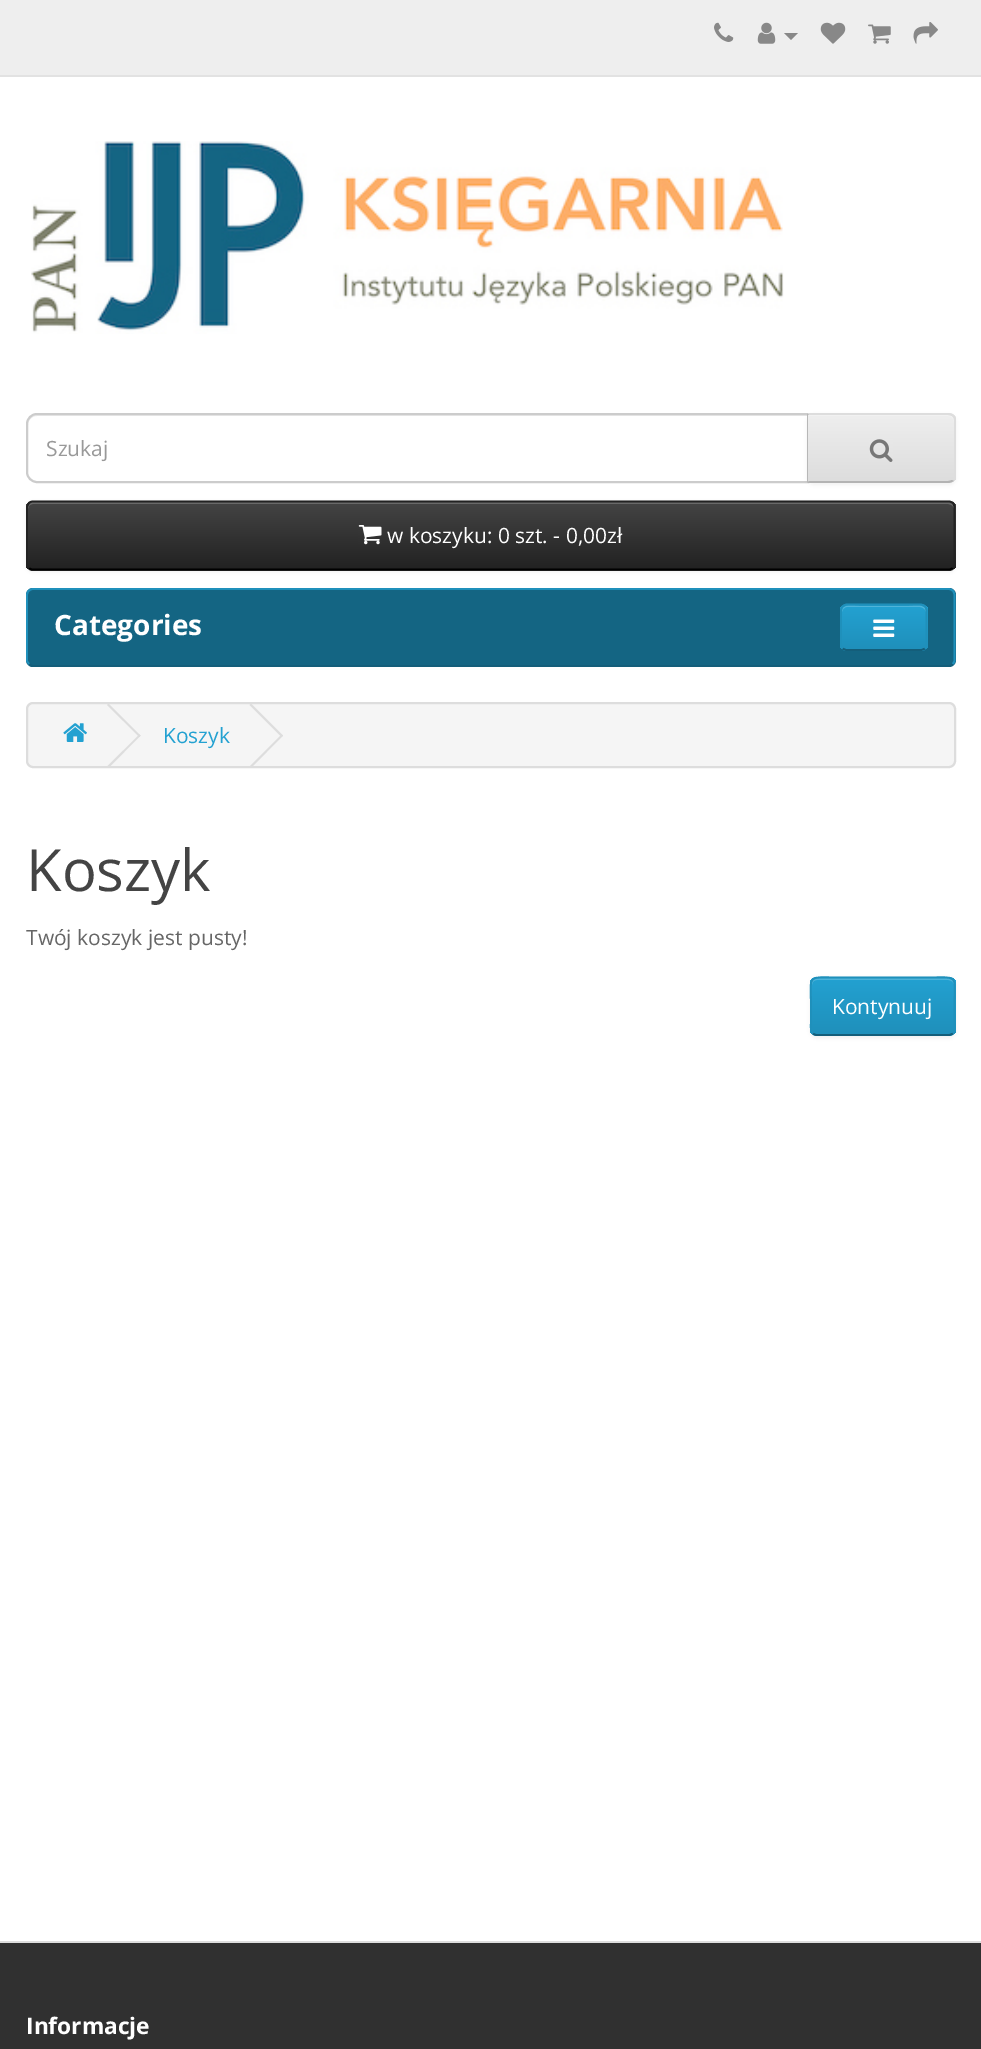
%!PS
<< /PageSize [981 2049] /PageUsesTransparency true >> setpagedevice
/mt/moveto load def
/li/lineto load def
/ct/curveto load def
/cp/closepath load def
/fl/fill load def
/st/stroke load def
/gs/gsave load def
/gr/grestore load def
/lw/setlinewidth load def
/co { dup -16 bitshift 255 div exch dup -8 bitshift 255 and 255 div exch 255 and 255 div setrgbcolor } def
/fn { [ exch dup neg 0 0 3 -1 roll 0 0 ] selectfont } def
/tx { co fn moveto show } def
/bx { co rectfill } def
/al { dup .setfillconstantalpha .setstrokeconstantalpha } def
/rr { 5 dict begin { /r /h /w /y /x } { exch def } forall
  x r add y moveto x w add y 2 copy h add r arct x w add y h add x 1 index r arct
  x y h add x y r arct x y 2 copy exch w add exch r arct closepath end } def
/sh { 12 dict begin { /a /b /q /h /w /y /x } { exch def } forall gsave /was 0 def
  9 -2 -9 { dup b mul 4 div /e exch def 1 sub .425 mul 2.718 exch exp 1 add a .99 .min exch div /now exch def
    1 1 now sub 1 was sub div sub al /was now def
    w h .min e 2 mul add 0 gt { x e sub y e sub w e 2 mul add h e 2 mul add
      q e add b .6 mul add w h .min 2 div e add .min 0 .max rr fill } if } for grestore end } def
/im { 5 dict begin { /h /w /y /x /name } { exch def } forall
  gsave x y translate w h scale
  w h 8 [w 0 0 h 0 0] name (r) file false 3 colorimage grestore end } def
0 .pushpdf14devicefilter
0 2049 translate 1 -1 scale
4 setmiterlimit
0 0 981 2049 16#FFFFFF bx
0 0 981 75 16#EEEEEE bx
0 75 981 2 16#E2E2E2 bx
(media/1.raw) 714 22 20 20 im
(media/2.raw) 757 22 19 22 im
16#888888 co
784 33 mt 798 33 li 791 40 li cp fl
(media/3.raw) 820 22 26 22 im
(media/4.raw) 868 24 23 20 im
(media/5.raw) 913 22 25 22 im
(media/6.raw) 31 141 753 193 im
16#ECECEC co
37 416 mt 807 416 li 807 415 li 37 415 li 32 415 28 419 28 424 ct 28 425 li 28 420 32 416 37 416 ct cp fl
16#CCCCCC co
2 lw
37 414 mt 808 414 li 808 482 li 37 482 li 31.5 482 27 477.5 27 472 ct 27 424 li 27 418.5 31.5 414 37 414 ct cp st
16#000000 co
807 415 149 70 7 2 .05 sh
16#E7E7E7 co
807 413 mt 949 413 li 953 413 956 416 956 420 ct 956 476 li 956 480 953 483 949 483 ct 807 483 li cp fl
gs
807 413 mt 949 413 li 953 413 956 416 956 420 ct 956 476 li 956 480 953 483 949 483 ct 807 483 li cp clip newpath
gs 808 415 mt 956 415 li 956 481 li 808 481 li cp clip newpath
<< /ShadingType 2 /ColorSpace /DeviceRGB /Coords [881 415 881 481] /Extend [true true] /Function << /FunctionType 2 /Domain [0 1] /C0 [.933 .933 .933] /C1 [.867 .867 .867] /N 1 >> >> shfill gr
gr
16#F1F1F1 co
809 415 mt 809 416 li 948 416 li 951 416 954 419 954 422 ct 954 419 953 415 949 415 ct cp fl
16#DDDDDD co
807 413 mt 809 415 li 948 415 li 950 415 951 416 952 416 ct 954 415 li 952 414 950 413 948 413 ct cp fl
956 478 mt 954 481 li 952 480 li 953 479 954 478 954 476 ct 954 420 li 954 418 953 417 952 416 ct 954 415 li 956 418 li cp fl
16#B3B3B3 co
807 483 mt 948 483 li 950 483 952 482 954 481 ct 952 480 li 951 480 950 481 948 481 ct 809 481 li cp fl
16#B7B7B7 co
808 415 mt 809 415 li 807 413 li 807 483 li 809 481 li 808 481 li cp fl
(media/7.raw) 869 439 24 23 im
16#000000 co
26 502 930 70 7 2 .05 sh
16#363636 co
26 501 930 70 7 rr fl
gs
26 501 930 70 7 rr clip newpath
gs 26 502 mt 956 502 li 956 569 li 26 569 li cp clip newpath
<< /ShadingType 2 /ColorSpace /DeviceRGB /Coords [491 502 491 569] /Extend [true true] /Function << /FunctionType 2 /Domain [0 1] /C0 [.267 .267 .267] /C1 [.133 .133 .133] /N 1 >> >> shfill gr
gr
16#696969 co
33 504 mt 948 504 li 951 504 954 506 954 509 ct 954 507 li 954 504 952 502 949 502 ct 33 502 li 30 502 28 504 28 507 ct 28 509 li 28 506 30 504 33 504 ct cp fl
16#000000 co
1.8 lw
953 568 mt 951.5 569 950 569.5 948.5 569.5 ct 33 569.5 li 31.5 569.5 30 569 29 568 ct st
16#222222 co
29 568 mt 28 566.5 27 565 27 563.5 ct 27 507.5 li 27 506 28 504.5 29 503 ct 30 502 31.5 501.5 33 501.5 ct 948.5 501.5 li 950 501.5 951.5 502 953 503 ct 954 504.5 954.5 506 954.5 507.5 ct 954.5 563.5 li 954.5 565 954 566.5 953 568 ct st
(media/8.raw) 358 525 24 20 im
16#146583 co
26 588 930 79 7 rr fl
16#145E7A co
953 664 mt 951.5 665 950 666 948.5 666 ct 33 666 li 31.5 666 30 665 29 664 ct st
16#1F90BB co
29 664 mt 27 661 li 27 594.5 li 28 591.5 li 29.5 590 31 589 33 589 ct 948.5 589 li 950.5 589 952.5 590 953.5 591.5 ct 954.5 594.5 li 954.5 661 li 953 664 li st
16#229AC8 co
840 604 88 47 7 rr fl
gs
840 604 88 47 7 rr clip newpath
gs 840 606 mt 928 606 li 928 649 li 840 649 li cp clip newpath
<< /ShadingType 2 /ColorSpace /DeviceRGB /Coords [884 606 884 649] /Extend [true true] /Function << /FunctionType 2 /Domain [0 1] /C0 [.137 .631 .82] /C1 [.122 .565 .733] /N 1 >> >> shfill gr
gr
16#4FB4DA co
847 607 mt 920 607 li 923 607 926 610 926 612 ct 926 603 914 606 909 606 ct 859 606 li 854 606 842 603 842 612 ct 842 610 844 607 847 607 ct cp fl
16#145E7A co
925 648.5 mt 923.5 649.5 922 650 920.5 650 ct 847 650 li 845.5 650 844 649.5 842.5 648.5 ct st
16#1F90BB co
842.5 648.5 mt 841.5 647 841 645.5 841 644 ct 841 611 li 841 609 841.5 607.5 842.5 606.5 ct 844 605.5 845.5 604.5 847 604.5 ct 920.5 604.5 li 922 604.5 923.5 605.5 925 606.5 ct 926 607.5 926.5 609 926.5 611 ct 926.5 644 li 926.5 645.5 926 647 925 648.5 ct st
(media/9.raw) 873 619 22 18 im
16#F5F5F5 co
27 703 928 64 6 rr gs fl gr
16#DDDDDD co
2 lw
st
(media/10.raw) 63 723 24 19 im
107 705 mt 108.5 703.5 li 140.5 735.5 li 139.5 737 li cp fl
107 766.5 mt 139.5 734.5 li 140.5 735.5 li 108.5 768 li cp fl
249.5 705 mt 251 703.5 li 283 735.5 li 281.5 737 li cp fl
249.5 766.5 mt 281.5 734.5 li 283 735.5 li 251 768 li cp fl
16#000000 co
810 978 146 60 7 2 .05 sh
16#229AC8 co
810 977 146 59 7 rr fl
gs
810 977 146 59 7 rr clip newpath
gs 810 978 mt 956 978 li 956 1034 li 810 1034 li cp clip newpath
<< /ShadingType 2 /ColorSpace /DeviceRGB /Coords [883 978 883 1034] /Extend [true true] /Function << /FunctionType 2 /Domain [0 1] /C0 [.137 .631 .82] /C1 [.122 .565 .733] /N 1 >> >> shfill gr
gr
16#4FB4DA co
817 980 mt 948 980 li 951 980 954 982 954 985 ct 954 983 li 954 980 952 978 949 978 ct 817 978 li 814 978 812 980 812 983 ct 812 985 li 812 982 814 980 817 980 ct cp fl
16#145E7A co
1.8 lw
953 1033.5 mt 951.5 1034.5 950 1035 948.5 1035 ct 817 1035 li 815.5 1035 814 1034.5 813 1033.5 ct st
16#1F90BB co
813 1033.5 mt 810 1030.5 811 1025 811 1021.5 ct 811 1006 li 811 973.5 805.5 977.5 839 977.5 ct 926.5 977.5 li 960 977.5 954.5 973.5 954.5 1006 ct 954.5 1021.5 li 954.5 1025 956 1030.5 953 1033.5 ct st
0 1943 981 106 16#303030 bx
0 1941 981 2 16#DDDDDD bx
(Szukaj) 46 456 /OpenSans-Regular 21 16#999999 tx
(w koszyku: 0 szt. - 0,00zł) 387 543 /OpenSans-Regular 21 16#FFFFFF tx
(Categories) 54 635 /OpenSans-Bold 28 16#FFFFFF tx
(Koszyk) 163 743 /OpenSans-Regular 21 16#23A1D1 tx
(Koszyk) 26 891 /OpenSans-Regular 58 16#444444 tx
(Twój koszyk jest pusty!) 26 945 /OpenSans-Regular 21 16#666666 tx
(Kontynuuj) 832 1014 /OpenSans-Regular 21 16#FFFFFF tx
(Informacje) 26 2034 /OpenSans-Bold 22.75 16#FFFFFF tx
.poppdf14devicefilter showpage
